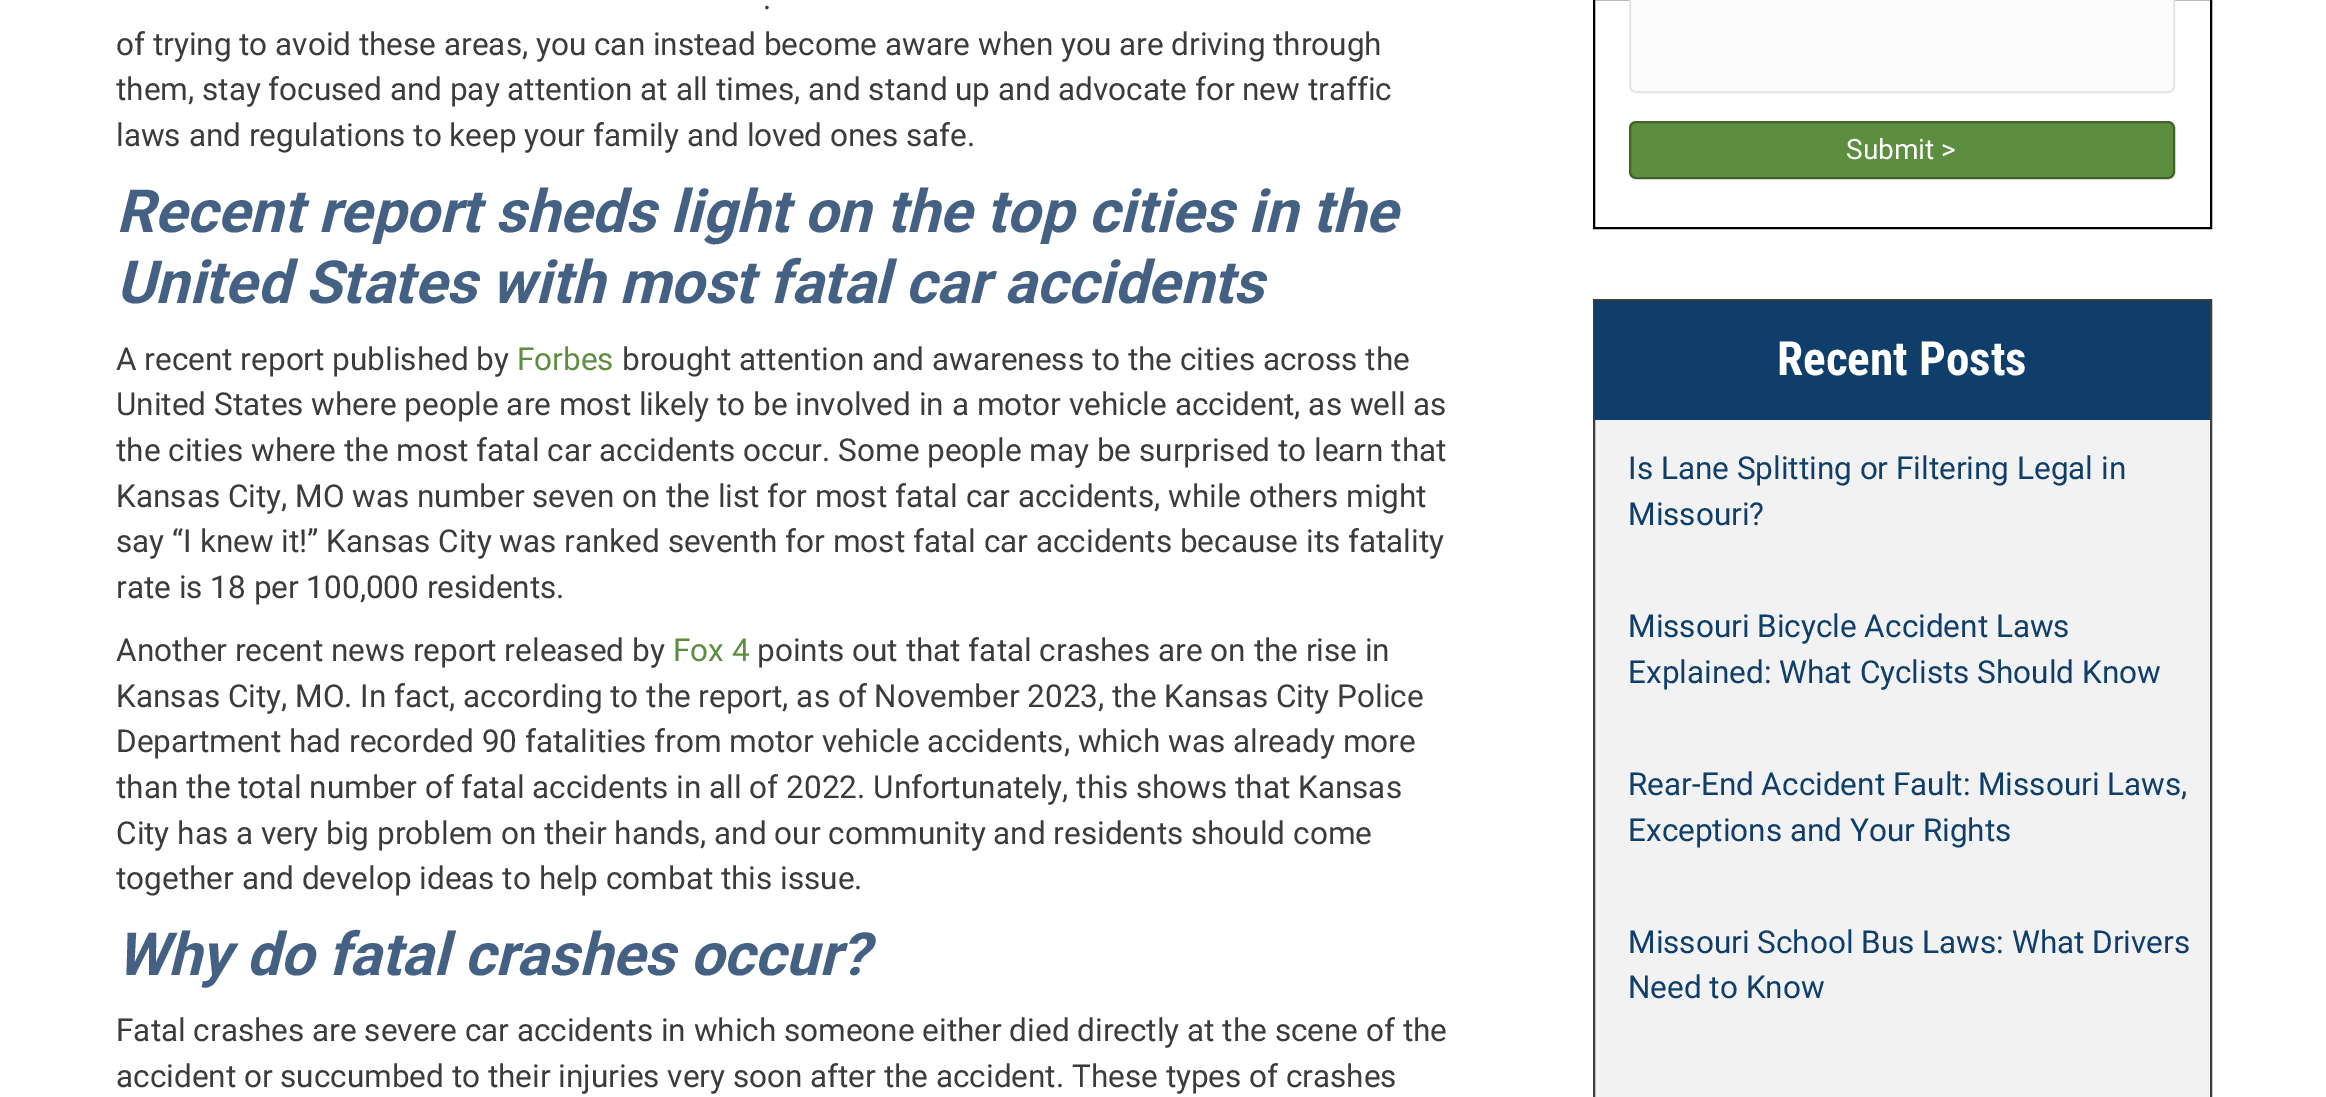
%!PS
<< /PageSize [2326 1097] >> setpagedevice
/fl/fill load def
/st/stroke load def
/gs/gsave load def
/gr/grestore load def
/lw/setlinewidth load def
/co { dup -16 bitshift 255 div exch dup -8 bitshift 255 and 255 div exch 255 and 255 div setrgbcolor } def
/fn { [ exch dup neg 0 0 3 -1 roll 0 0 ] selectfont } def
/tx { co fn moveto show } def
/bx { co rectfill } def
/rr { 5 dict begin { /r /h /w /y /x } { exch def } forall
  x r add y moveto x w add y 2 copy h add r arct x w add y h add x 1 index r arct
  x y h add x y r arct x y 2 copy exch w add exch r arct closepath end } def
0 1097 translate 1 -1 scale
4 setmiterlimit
0 0 2326 1097 16#FFFFFF bx
16#000000 co
2 lw
1594 -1 617 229 rectstroke
16#FCFCFC co
1630 -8 544 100 6 rr gs fl gr
16#E6E6E6 co
st
16#5D8D3E co
1630 122 544 56 6 rr gs fl gr
16#41622B co
st
1595 420 615 677 16#F2F2F2 bx
16#3D3D3D co
1594 300 617 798 rectstroke
1594 301 616 119 16#0E3E69 bx
(.) 763 9 /Roboto-Regular 31.5 16#3B3B3B tx
(of trying to avoid these areas, you can instead become aware when you are driving through) 116 55 /Roboto-Regular 31.5 16#3B3B3B tx
(them, stay focused and pay attention at all times, and stand up and advocate for new traffic) 116 100 /Roboto-Regular 31.5 16#3B3B3B tx
(laws and regulations to keep your family and loved ones safe.) 116 146 /Roboto-Regular 31.5 16#3B3B3B tx
(Recent report sheds light on the top cities in the) 116 232 /Roboto-BoldItalic 59.5 16#446082 tx
(United States with most fatal car accidents) 116 303 /Roboto-BoldItalic 59.5 16#446082 tx
(A recent report published by) 116 370 /Roboto-Regular 31.5 16#3B3B3B tx
(Forbes) 517 370 /Roboto-Regular 31.5 16#5D8D3E tx
(brought attention and awareness to the cities across the) 622 370 /Roboto-Regular 31.5 16#3B3B3B tx
(United States where people are most likely to be involved in a motor vehicle accident, as well as) 116 415 /Roboto-Regular 31.5 16#3B3B3B tx
(the cities where the most fatal car accidents occur. Some people may be surprised to learn that) 116 461 /Roboto-Regular 31.5 16#3B3B3B tx
(Kansas City, MO was number seven on the list for most fatal car accidents, while others might) 116 507 /Roboto-Regular 31.5 16#3B3B3B tx
(say “I knew it!” Kansas City was ranked seventh for most fatal car accidents because its fatality) 116 552 /Roboto-Regular 31.5 16#3B3B3B tx
(rate is 18 per 100,000 residents.) 116 598 /Roboto-Regular 31.5 16#3B3B3B tx
(Another recent news report released by) 116 661 /Roboto-Regular 31.5 16#3B3B3B tx
(Fox 4) 673 661 /Roboto-Regular 31.5 16#5D8D3E tx
(points out that fatal crashes are on the rise in) 757 661 /Roboto-Regular 31.5 16#3B3B3B tx
(Kansas City, MO. In fact, according to the report, as of November 2023, the Kansas City Police) 116 707 /Roboto-Regular 31.5 16#3B3B3B tx
(Department had recorded 90 fatalities from motor vehicle accidents, which was already more) 116 752 /Roboto-Regular 31.5 16#3B3B3B tx
(than the total number of fatal accidents in all of 2022. Unfortunately, this shows that Kansas) 116 798 /Roboto-Regular 31.5 16#3B3B3B tx
(City has a very big problem on their hands, and our community and residents should come) 116 844 /Roboto-Regular 31.5 16#3B3B3B tx
(together and develop ideas to help combat this issue.) 116 889 /Roboto-Regular 31.5 16#3B3B3B tx
(Why do fatal crashes occur?) 116 975 /Roboto-BoldItalic 59.5 16#446082 tx
(Fatal crashes are severe car accidents in which someone either died directly at the scene of the) 116 1041 /Roboto-Regular 31.5 16#3B3B3B tx
(accident or succumbed to their injuries very soon after the accident. These types of crashes) 116 1087 /Roboto-Regular 31.5 16#3B3B3B tx
(Submit >) 1846 159 /Roboto-Regular 28 16#FFFFFF tx
(Recent Posts) 1777 375 /RobotoCondensed-Bold 47.25 16#FFFFFF tx
(Is Lane Splitting or Filtering Legal in) 1628 479 /Roboto-Regular 31.5 16#0E3E69 tx
(Missouri?) 1628 525 /Roboto-Regular 31.5 16#0E3E69 tx
(Missouri Bicycle Accident Laws) 1628 637 /Roboto-Regular 31.5 16#0E3E69 tx
(Explained: What Cyclists Should Know) 1628 683 /Roboto-Regular 31.5 16#0E3E69 tx
(Rear-End Accident Fault: Missouri Laws,) 1628 795 /Roboto-Regular 31.5 16#0E3E69 tx
(Exceptions and Your Rights) 1628 841 /Roboto-Regular 31.5 16#0E3E69 tx
(Missouri School Bus Laws: What Drivers) 1628 953 /Roboto-Regular 31.5 16#0E3E69 tx
(Need to Know) 1628 998 /Roboto-Regular 31.5 16#0E3E69 tx
showpage
